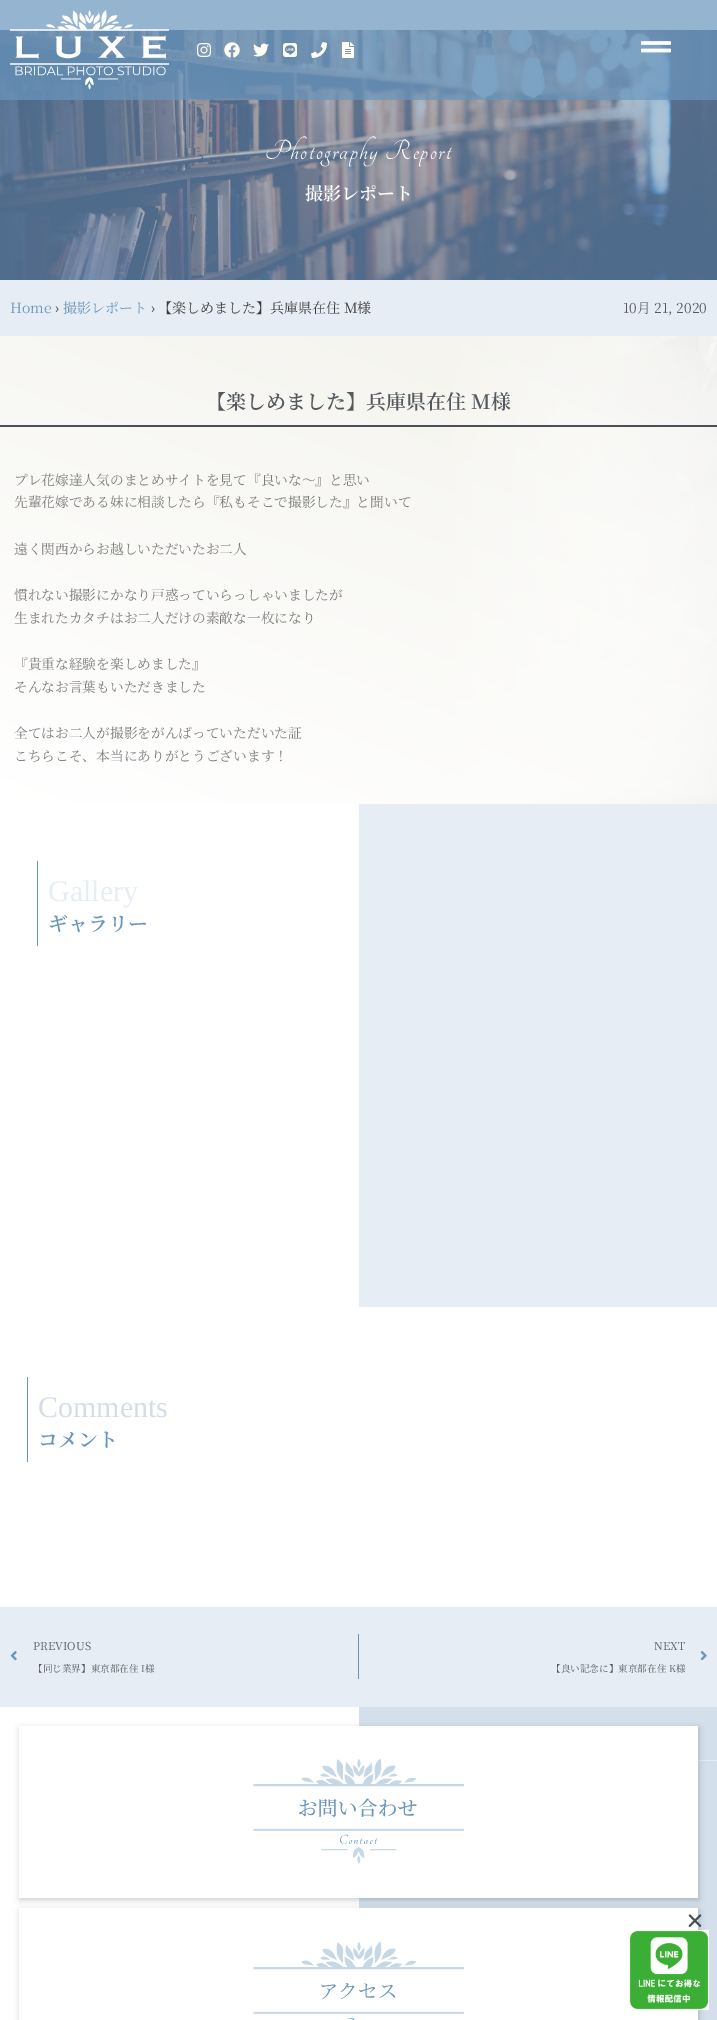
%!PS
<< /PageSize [717 2020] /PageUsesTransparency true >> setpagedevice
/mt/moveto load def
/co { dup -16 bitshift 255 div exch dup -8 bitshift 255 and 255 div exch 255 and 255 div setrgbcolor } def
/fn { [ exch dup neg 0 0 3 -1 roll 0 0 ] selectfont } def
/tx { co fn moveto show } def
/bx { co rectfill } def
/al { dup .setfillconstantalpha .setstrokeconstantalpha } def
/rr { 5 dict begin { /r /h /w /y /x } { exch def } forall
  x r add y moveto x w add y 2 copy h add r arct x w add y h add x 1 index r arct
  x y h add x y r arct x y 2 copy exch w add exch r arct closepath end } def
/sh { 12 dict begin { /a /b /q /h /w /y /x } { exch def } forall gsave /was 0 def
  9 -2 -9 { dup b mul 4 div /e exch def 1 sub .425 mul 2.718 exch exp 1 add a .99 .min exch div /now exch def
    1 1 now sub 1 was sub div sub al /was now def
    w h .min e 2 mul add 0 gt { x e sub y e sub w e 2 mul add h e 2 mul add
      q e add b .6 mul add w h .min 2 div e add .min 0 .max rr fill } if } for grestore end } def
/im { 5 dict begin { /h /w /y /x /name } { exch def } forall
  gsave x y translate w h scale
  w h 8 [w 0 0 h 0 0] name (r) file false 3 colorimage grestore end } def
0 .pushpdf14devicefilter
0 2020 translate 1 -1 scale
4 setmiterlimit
0 0 717 2020 16#FFFFFF bx
(media/9.raw) 0 30 717 250 im
0.71 al
0 0 717 100 16#6995BC bx
1 al
(media/1.raw) 10 10 159 80 im
(media/2.raw) 197 43 14 14 im
(media/3.raw) 224 42 16 16 im
(media/4.raw) 253 43 16 14 im
(media/5.raw) 283 43 14 14 im
(media/6.raw) 311 42 16 16 im
(media/7.raw) 342 42 12 16 im
(media/8.raw) 641 41 30 12 im
0 280 717 56 16#E6EDF4 bx
(media/10.raw) 0 336 717 468 im
0 425 717 2 16#4B4F58 bx
37 861 1 85 16#6995BC bx
359 804 358 503 16#E6EDF4 bx
27 1377 1 85 16#6995BC bx
0 1607 717 100 16#E6EDF4 bx
(media/11.raw) 10 1651 7 10 im
358 1634 1 45 16#6995BC bx
(media/12.raw) 700 1651 7 10 im
359 1707 358 313 16#D3E0EB bx
(media/15.raw) 698 1760 19 1 im
16#000000 co
20 1728 679 172 0 3 .2 sh
19 1726 679 172 16#FFFFFF bx
(media/13.raw) 253 1758 211 106 im
16#000000 co
20 1910 679 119 0 3 .2 sh
19 1908 679 112 16#FFFFFF bx
(media/14.raw) 253 1941 211 79 im
(media/16.raw) 688 1914 14 13 im
(media/17.raw) 629 1930 80 80 im
/Tangerine-Regular 30 fn
265 159 mt 1.6 0 (Photography Report) ashow
(撮影レポート) 305 200 /NotoSerifJP-SemiBold 18 16#FFFFFF tx
(Home) 10 313 /NotoSerifJP-Regular 14 16#6995BC tx
(›) 55 313 /Roboto-Regular 14 16#4B4F58 tx
(撮影レポート) 63 313 /NotoSerifJP-Regular 14 16#6995BC tx
(›) 151 313 /Roboto-Regular 14 16#4B4F58 tx
(【楽しめました】兵庫県在住 M様) 158 313 /NotoSerifJP-Regular 14 16#3A3A3A tx
(10月 21, 2020) 623 313 /NotoSerifJP-Regular 13.7 16#54595F tx
(【楽しめました】兵庫県在住 M様) 206 409 /NotoSerifJP-SemiBold 20 16#54595F tx
(プレ花嫁達人気のまとめサイトを見て『良いな～』と思い) 14 485 /NotoSerifJP-Regular 13.7 16#7A7A7A tx
(先輩花嫁である妹に相談したら『私もそこで撮影した』と聞いて) 14 507 /NotoSerifJP-Regular 13.7 16#7A7A7A tx
(遠く関西からお越しいただいたお二人) 14 554 /NotoSerifJP-Regular 13.7 16#7A7A7A tx
(慣れない撮影にかなり戸惑っていらっしゃいましたが) 14 600 /NotoSerifJP-Regular 13.7 16#7A7A7A tx
(生まれたカタチはお二人だけの素敵な一枚になり) 14 623 /NotoSerifJP-Regular 13.7 16#7A7A7A tx
(『貴重な経験を楽しめました』) 14 669 /NotoSerifJP-Regular 13.7 16#7A7A7A tx
(そんなお言葉もいただきました) 14 692 /NotoSerifJP-Regular 13.7 16#7A7A7A tx
(全てはお二人が撮影をがんばっていただいた証) 14 738 /NotoSerifJP-Regular 13.7 16#7A7A7A tx
(こちらこそ、本当にありがとうございます！) 14 761 /NotoSerifJP-Regular 13.7 16#7A7A7A tx
(Gallery) 48 901 /LiberationSerif-Regular 30 16#E6EDF4 tx
(ギャラリー) 48 931 /NotoSerifJP-SemiBold 20 16#6995BC tx
(Comments) 38 1417 /LiberationSerif-Regular 30 16#D4DDE7 tx
(コメント) 38 1447 /NotoSerifJP-SemiBold 20 16#6995BC tx
(PREVIOUS) 33 1650 /NotoSerifJP-Regular 11 16#54595F tx
(【同じ業界】東京都在住 I様) 33 1672 /NotoSerifJP-Regular 9.6 16#54595F tx
(NEXT) 654 1650 /NotoSerifJP-Regular 11 16#54595F tx
(【良い記念に】東京都在住 K様) 551 1672 /NotoSerifJP-Regular 9.6 16#54595F tx
.poppdf14devicefilter showpage
